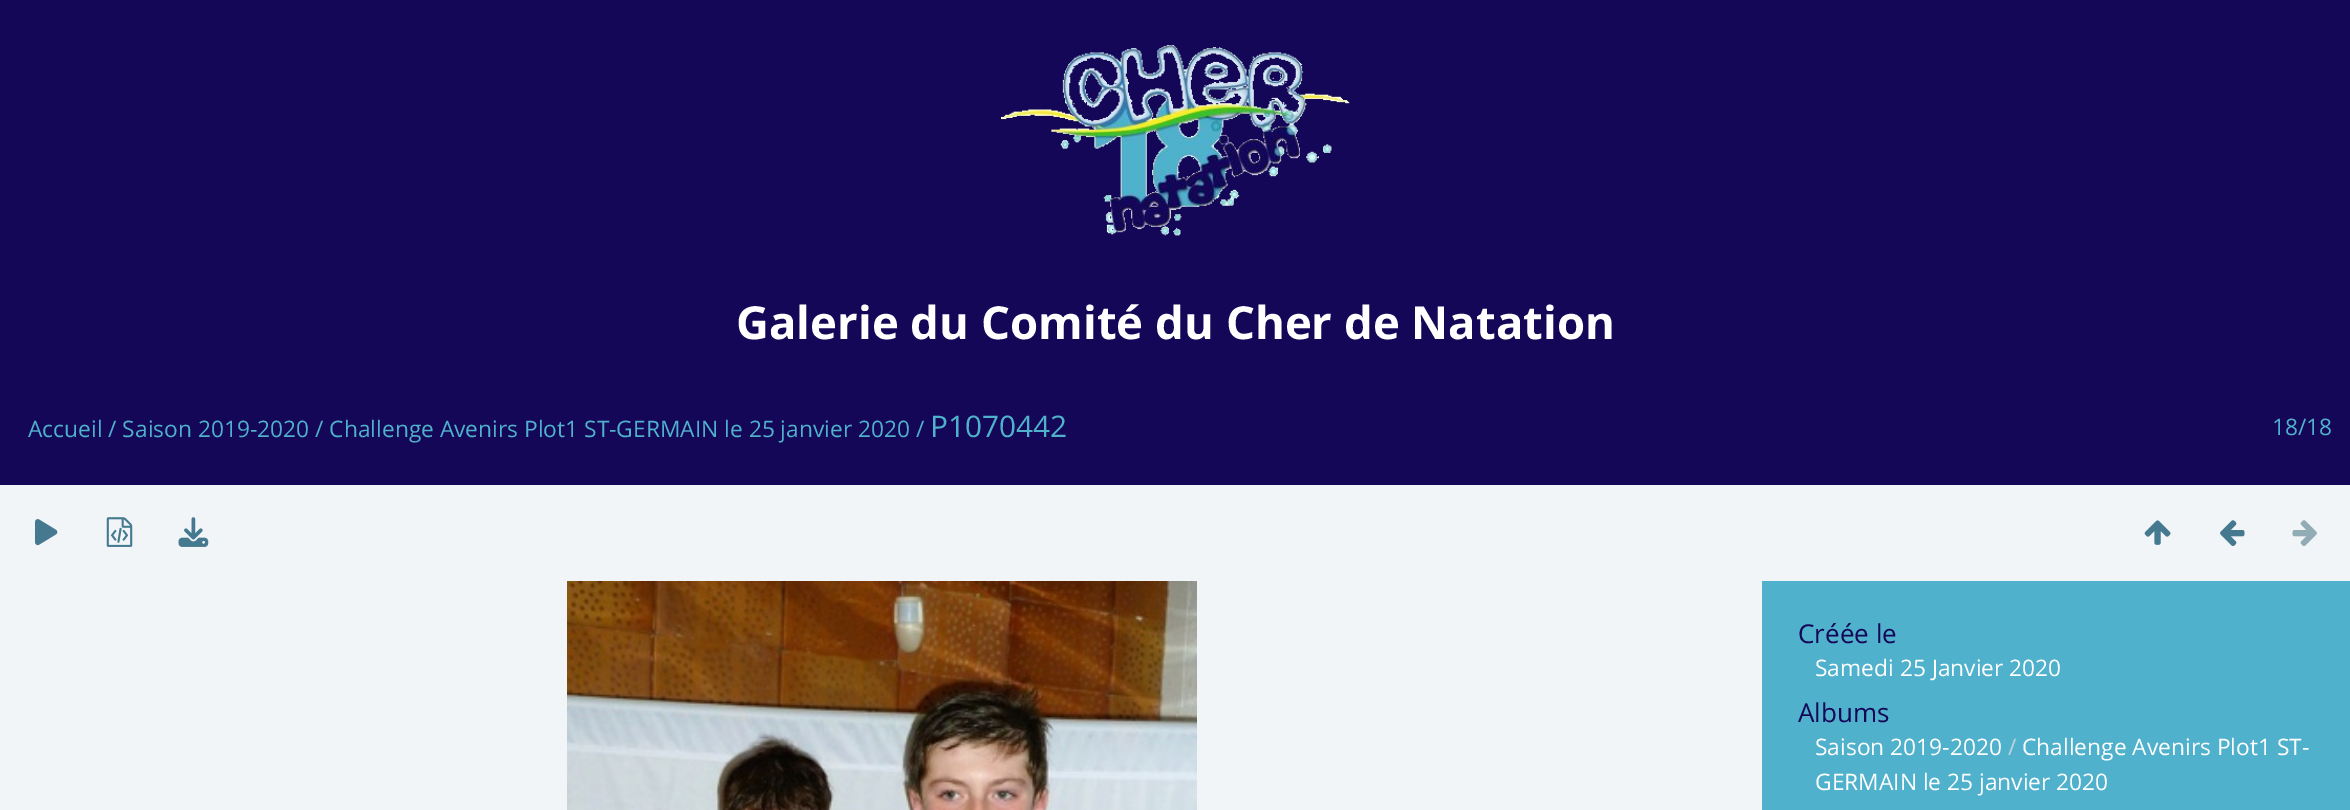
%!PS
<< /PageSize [2350 810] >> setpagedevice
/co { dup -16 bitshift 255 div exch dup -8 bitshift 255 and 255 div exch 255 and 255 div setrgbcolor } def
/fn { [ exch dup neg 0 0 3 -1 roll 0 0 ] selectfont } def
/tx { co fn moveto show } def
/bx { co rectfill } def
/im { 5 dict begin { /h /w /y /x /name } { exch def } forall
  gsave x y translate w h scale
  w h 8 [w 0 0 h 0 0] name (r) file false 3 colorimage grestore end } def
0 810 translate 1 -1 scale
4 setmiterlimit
0 0 2350 810 16#F1F5F8 bx
0 0 2350 485 16#140757 bx
(media/1.raw) 1001 45 349 191 im
(media/2.raw) 35 519 23 27 im
(media/3.raw) 106 517 27 30 im
(media/4.raw) 178 517 31 30 im
(media/5.raw) 2144 520 27 25 im
(media/6.raw) 2220 520 25 26 im
(media/7.raw) 2292 520 25 26 im
(media/8.raw) 567 581 630 229 im
1762 581 588 229 16#4FB1CC bx
(Galerie du Comité du Cher de Natation) 736 339 /OpenSans-Bold 45.5 16#FFFFFF tx
(Accueil / Saison 2019-2020 / Challenge Avenirs Plot1 ST-GERMAIN le 25 janvier 2020 /) 28 437 /OpenSans-Regular 22.75 16#4FB1CC tx
(P1070442) 930 437 /OpenSans-Regular 29.75 16#4FB1CC tx
(18/18) 2272 435 /OpenSans-Regular 22.75 16#4FB1CC tx
(Créée le) 1798 643 /OpenSans-Regular 26 16#140757 tx
(Samedi 25 Janvier 2020) 1815 676 /OpenSans-Regular 22.75 16#FFFFFF tx
(Albums) 1798 722 /OpenSans-Regular 26 16#140757 tx
(Saison 2019-2020) 1815 755 /OpenSans-Regular 22.75 16#FFFFFF tx
(/) 2008 755 /OpenSans-Regular 22.75 16#C0D2DF tx
(Challenge Avenirs Plot1 ST-) 2022 755 /OpenSans-Regular 22.75 16#FFFFFF tx
(GERMAIN le 25 janvier 2020) 1815 790 /OpenSans-Regular 22.75 16#FFFFFF tx
showpage
